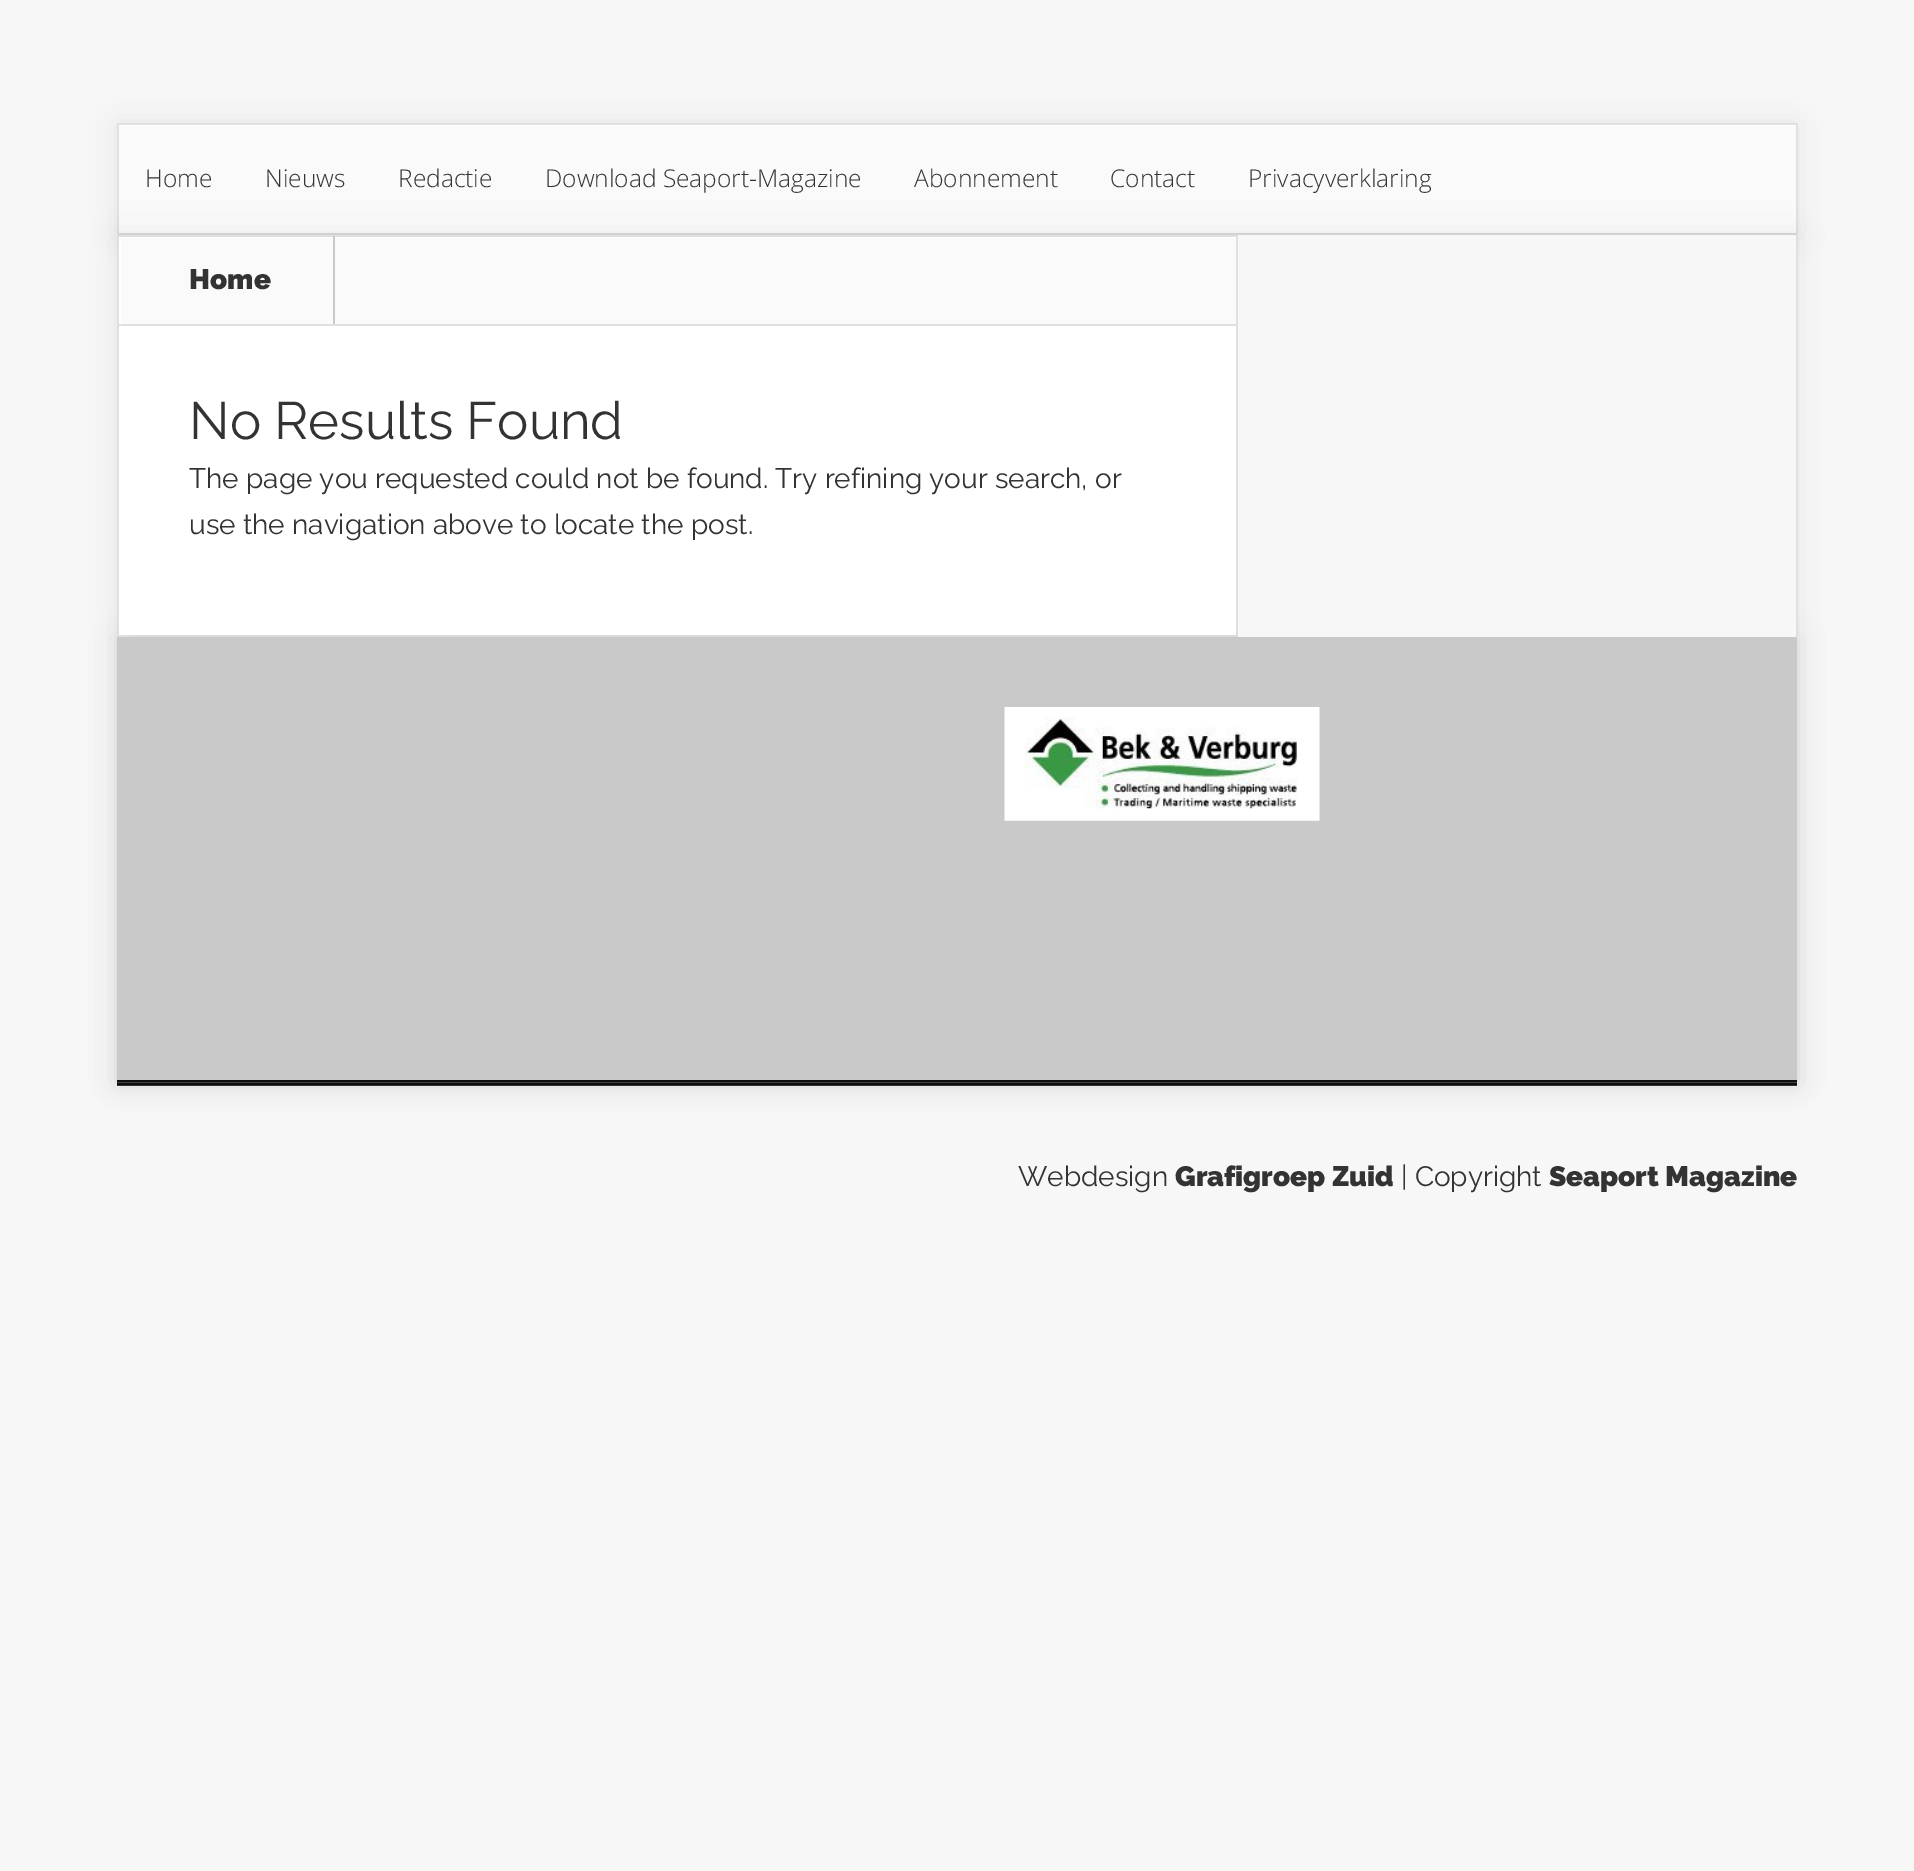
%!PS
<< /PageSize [1914 1871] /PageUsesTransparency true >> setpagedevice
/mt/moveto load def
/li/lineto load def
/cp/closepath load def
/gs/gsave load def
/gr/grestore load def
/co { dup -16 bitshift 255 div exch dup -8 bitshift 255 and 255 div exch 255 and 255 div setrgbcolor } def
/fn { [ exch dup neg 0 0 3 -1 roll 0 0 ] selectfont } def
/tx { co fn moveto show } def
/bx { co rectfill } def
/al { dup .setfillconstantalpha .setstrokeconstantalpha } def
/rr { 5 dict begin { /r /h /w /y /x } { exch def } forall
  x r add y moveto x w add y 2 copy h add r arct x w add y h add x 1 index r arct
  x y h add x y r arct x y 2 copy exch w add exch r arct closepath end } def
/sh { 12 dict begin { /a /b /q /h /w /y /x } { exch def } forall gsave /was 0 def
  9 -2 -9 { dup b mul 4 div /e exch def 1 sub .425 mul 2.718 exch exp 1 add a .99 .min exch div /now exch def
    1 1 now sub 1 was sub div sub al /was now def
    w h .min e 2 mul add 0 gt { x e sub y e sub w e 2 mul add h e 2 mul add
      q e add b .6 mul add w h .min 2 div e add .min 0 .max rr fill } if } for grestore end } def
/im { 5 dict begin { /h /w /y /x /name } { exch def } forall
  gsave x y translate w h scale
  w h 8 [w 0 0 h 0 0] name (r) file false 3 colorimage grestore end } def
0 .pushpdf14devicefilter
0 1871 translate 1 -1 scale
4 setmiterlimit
0 0 1914 1871 16#F7F7F7 bx
16#000000 co
117 123 1680 112 0 13 .07 sh
119 126 1677 107 16#FAFAFA bx
119 233 1677 2 16#DADADA bx
119 125 1677 1 16#FFFFFF bx
117 123 1680 2 16#E0E0E0 bx
1796 123 2 112 16#E0E0E0 bx
117 123 2 112 16#E0E0E0 bx
16#000000 co
117 235 1680 850 0 13 .07 sh
117 637 1680 445 0 13 .07 sh
119 326 1117 309 16#FFFFFF bx
1796 235 2 402 16#E0E0E0 bx
117 235 2 402 16#E0E0E0 bx
121 238 1115 86 16#FAFAFA bx
gs
119 236 1117 88 rectclip
16#FFFFFF co
-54 63 mt 1409 63 li 1409 497 li -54 497 li cp 121 238 mt 1237 238 li 1237 326 li 121 326 li cp eofill
gr
119 235 1117 2 16#E0E0E0 bx
119 324 1117 2 16#E0E0E0 bx
333 236 2 88 16#CAC9C9 bx
119 635 10 2 16#E0E0E0 bx
1238 235 558 402 16#F7F7F7 bx
1236 235 2 391 16#E0E0E0 bx
117 1080 1680 2 16#0F0F0F bx
117 637 1680 443 16#C9C9C9 bx
(media/1.raw) 1004 707 316 114 im
117 1085 1680 1 16#333333 bx
117 1082 1680 1 16#404040 bx
117 1083 1680 2 16#0F0F0F bx
(Home) 145 187 /OpenSans-Light 24.5 16#333333 tx
(Nieuws) 265 187 /OpenSans-Light 24.5 16#333333 tx
(Redactie) 398 187 /OpenSans-Light 24.5 16#333333 tx
(Download Seaport-Magazine) 545 187 /OpenSans-Light 24.5 16#333333 tx
(Abonnement) 914 187 /OpenSans-Light 24.5 16#333333 tx
(Contact) 1110 187 /OpenSans-Light 24.5 16#333333 tx
(Privacyverklaring) 1248 187 /OpenSans-Light 24.5 16#333333 tx
(Home) 189 289 /Raleway-Black 28 16#333333 tx
(No Results Found) 189 439 /Raleway-Regular 52.5 16#333333 tx
(The page you requested could not be found. Try refining your search, or) 189 488 /Raleway-Regular 28 16#333333 tx
(use the navigation above to locate the post.) 189 534 /Raleway-Regular 28 16#333333 tx
(Webdesign) 1018 1186 /Raleway-Regular 28 16#333333 tx
(Grafigroep Zuid) 1175 1186 /Raleway-Black 28 16#333333 tx
(| Copyright) 1401 1186 /Raleway-Regular 28 16#333333 tx
(Seaport Magazine) 1549 1186 /Raleway-Black 28 16#333333 tx
.poppdf14devicefilter showpage
